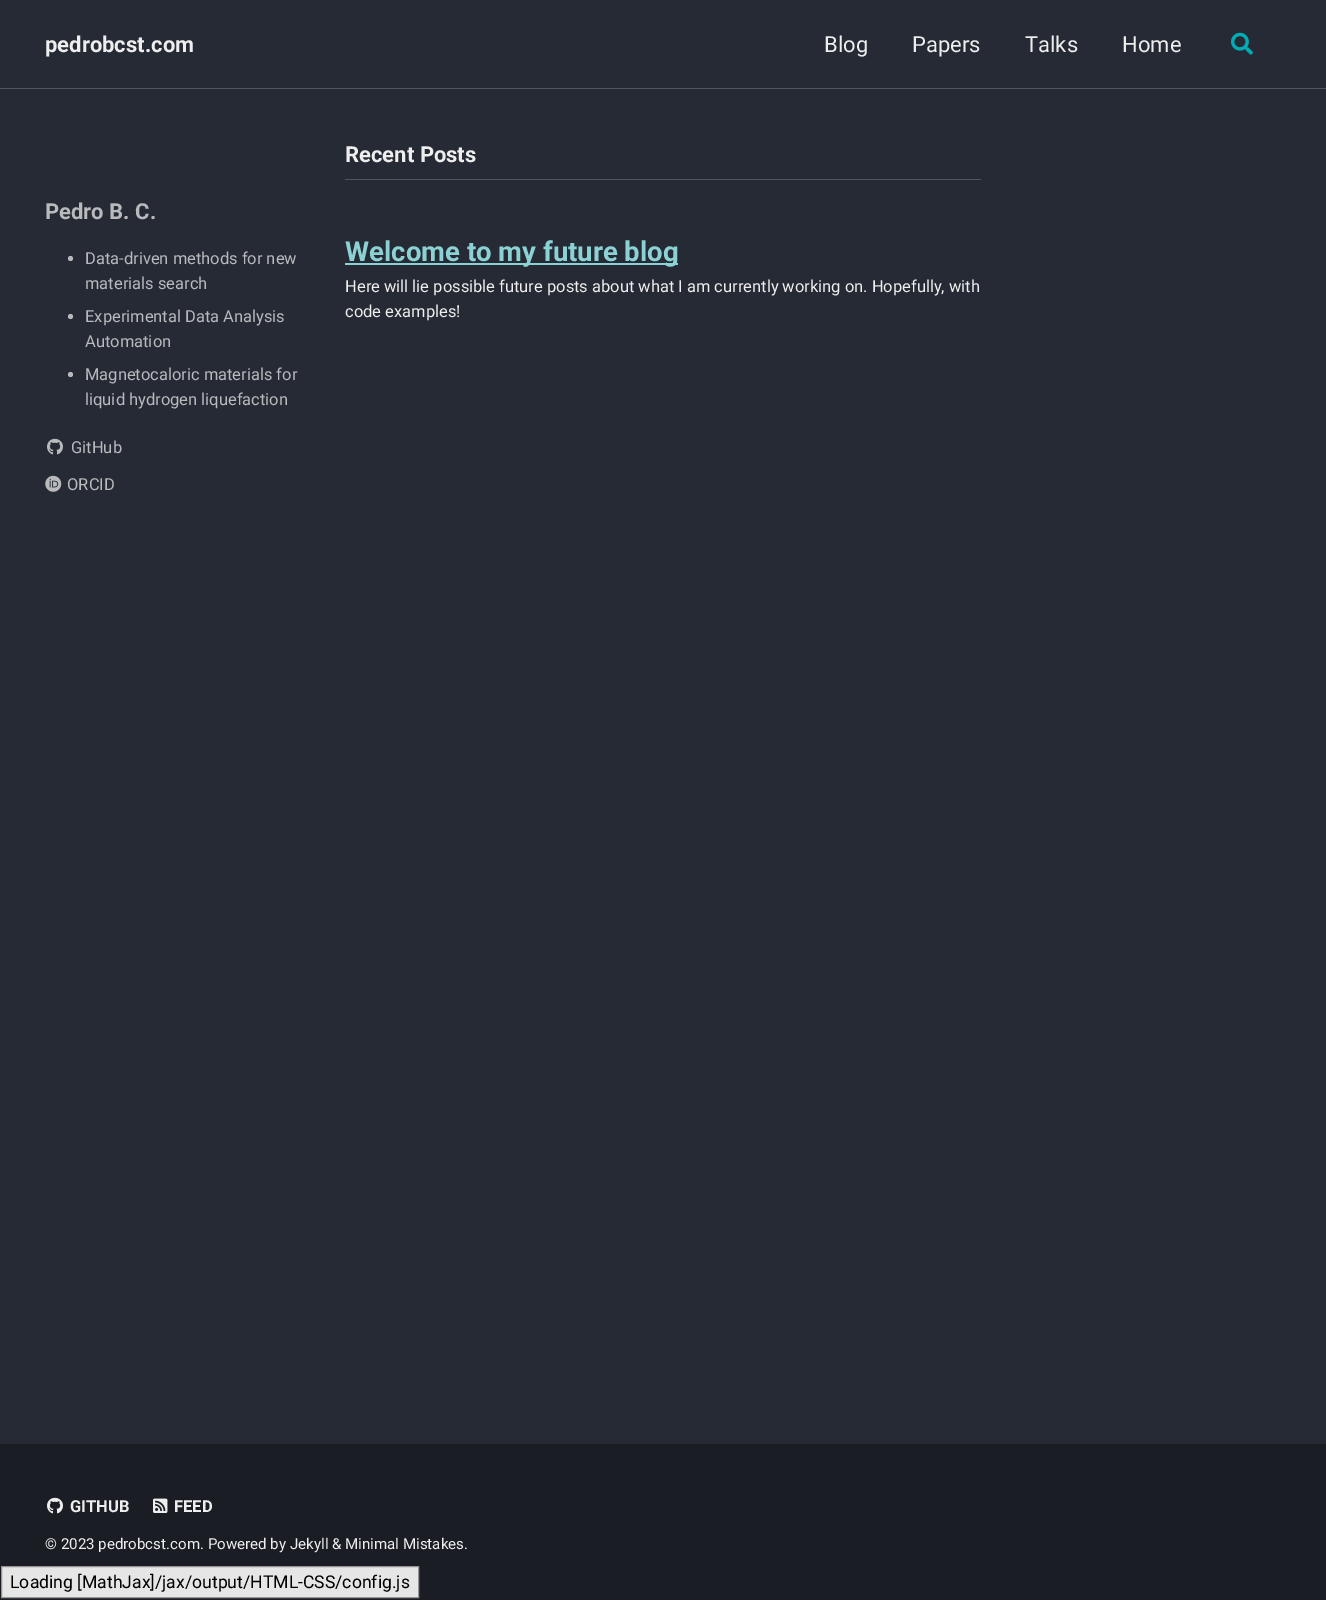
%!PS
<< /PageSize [1326 1600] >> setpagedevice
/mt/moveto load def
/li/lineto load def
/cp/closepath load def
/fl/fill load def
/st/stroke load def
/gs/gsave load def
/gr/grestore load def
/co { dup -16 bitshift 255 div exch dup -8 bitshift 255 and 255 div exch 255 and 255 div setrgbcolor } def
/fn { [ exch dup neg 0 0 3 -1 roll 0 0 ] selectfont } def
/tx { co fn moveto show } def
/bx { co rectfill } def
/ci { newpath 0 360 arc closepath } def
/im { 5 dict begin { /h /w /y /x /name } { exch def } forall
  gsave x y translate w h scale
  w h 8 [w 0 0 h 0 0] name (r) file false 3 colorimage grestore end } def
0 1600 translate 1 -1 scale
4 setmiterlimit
0 0 1326 1600 16#252A34 bx
0 88 1326 1 16#51555D bx
(media/1.raw) 1231 32 22 23 im
16#B9BABD co
70.5 258.5 2.5 ci fl
70.5 316.5 2.5 ci fl
70.5 374.5 2.5 ci fl
(media/2.raw) 47 438 16 17 im
(media/3.raw) 45 475 17 17 im
345 179 636 1 16#51555D bx
345 263 333 2 16#8CD2D5 bx
0 1444 1326 156 16#1A1D24 bx
(media/4.raw) 47 1497 16 17 im
(media/5.raw) 153 1498 15 15 im
16#E6E6E6 co
1.5 1566.5 mt 418.5 1566.5 li 418.5 1597.5 li 1.5 1597.5 li cp gs fl gr
16#959595 co
st
(pedrobcst.com) 45 52 /Roboto-Bold 22 16#EEEEEE tx
(Blog) 824 52 /Roboto-Regular 22 16#EEEEEE tx
(Papers) 912 52 /Roboto-Regular 22 16#EEEEEE tx
(Talks) 1025 52 /Roboto-Regular 22 16#EEEEEE tx
(Home) 1122 52 /Roboto-Regular 22 16#EEEEEE tx
(Pedro B. C.) 45 219 /Roboto-Bold 22 16#B9BABD tx
(Data-driven methods for new) 85 264 /Roboto-Regular 16.5 16#B9BABD tx
(materials search) 85 289 /Roboto-Regular 16.5 16#B9BABD tx
(Experimental Data Analysis) 85 322 /Roboto-Regular 16.5 16#B9BABD tx
(Automation) 85 347 /Roboto-Regular 16.5 16#B9BABD tx
(Magnetocaloric materials for) 85 380 /Roboto-Regular 16.5 16#B9BABD tx
(liquid hydrogen liquefaction) 85 405 /Roboto-Regular 16.5 16#B9BABD tx
(GitHub) 71 453 /Roboto-Regular 16.5 16#B9BABD tx
(ORCID) 67 490 /Roboto-Regular 16.5 16#B9BABD tx
(Recent Posts) 345 162 /Roboto-Bold 22 16#EEEEEE tx
(Welcome to my future blog) 345 261 /Roboto-Bold 27.5 16#8CD2D5 tx
(Here will lie possible future posts about what I am currently working on. Hopefully, with) 345 292 /Roboto-Regular 16.5 16#EEEEEE tx
(code examples!) 345 317 /Roboto-Regular 16.5 16#EEEEEE tx
(GITHUB) 70 1512 /Roboto-Bold 16.5 16#EEEEEE tx
(FEED) 174 1512 /Roboto-Bold 16.5 16#EEEEEE tx
(© 2023 pedrobcst.com. Powered by Jekyll & Minimal Mistakes.) 45 1549 /Roboto-Regular 15.1 16#EEEEEE tx
(Loading [MathJax]/jax/output/HTML-CSS/config.js) 10 1588 /Roboto-Regular 17.6 16#000000 tx
showpage
